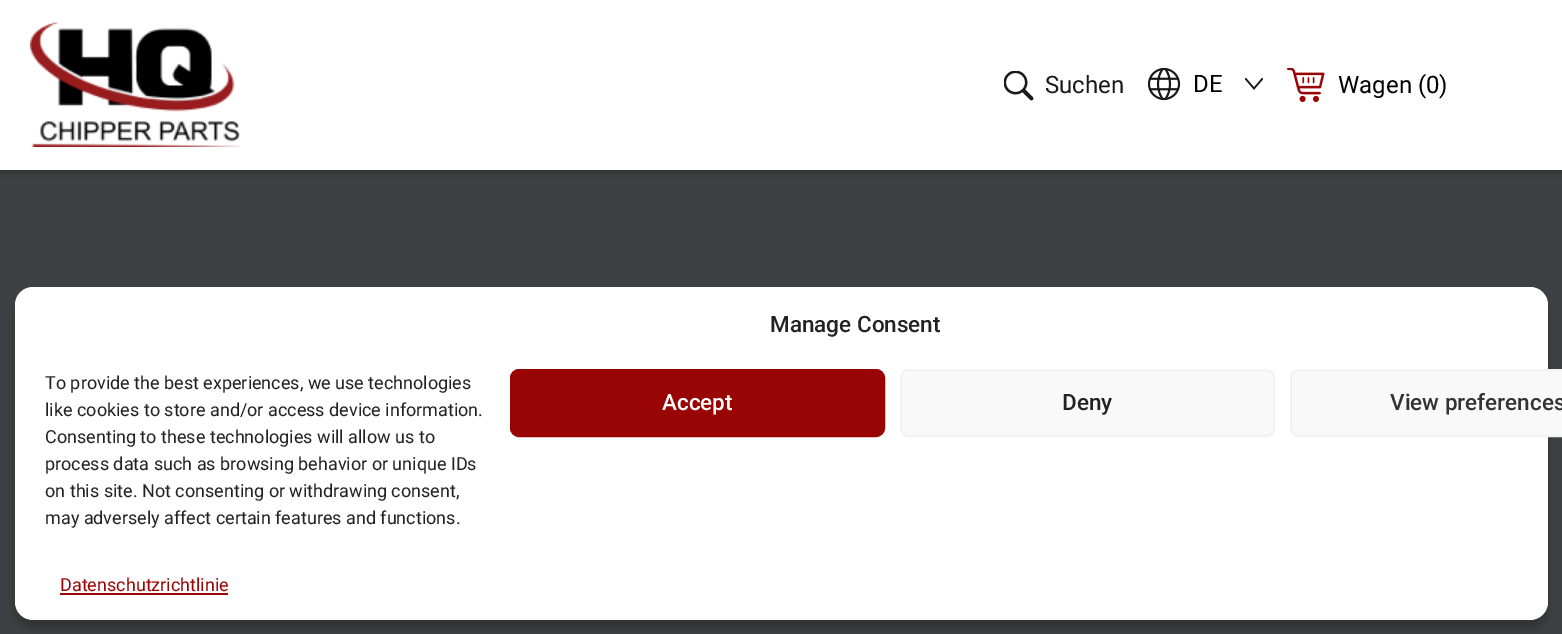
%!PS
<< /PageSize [1562 634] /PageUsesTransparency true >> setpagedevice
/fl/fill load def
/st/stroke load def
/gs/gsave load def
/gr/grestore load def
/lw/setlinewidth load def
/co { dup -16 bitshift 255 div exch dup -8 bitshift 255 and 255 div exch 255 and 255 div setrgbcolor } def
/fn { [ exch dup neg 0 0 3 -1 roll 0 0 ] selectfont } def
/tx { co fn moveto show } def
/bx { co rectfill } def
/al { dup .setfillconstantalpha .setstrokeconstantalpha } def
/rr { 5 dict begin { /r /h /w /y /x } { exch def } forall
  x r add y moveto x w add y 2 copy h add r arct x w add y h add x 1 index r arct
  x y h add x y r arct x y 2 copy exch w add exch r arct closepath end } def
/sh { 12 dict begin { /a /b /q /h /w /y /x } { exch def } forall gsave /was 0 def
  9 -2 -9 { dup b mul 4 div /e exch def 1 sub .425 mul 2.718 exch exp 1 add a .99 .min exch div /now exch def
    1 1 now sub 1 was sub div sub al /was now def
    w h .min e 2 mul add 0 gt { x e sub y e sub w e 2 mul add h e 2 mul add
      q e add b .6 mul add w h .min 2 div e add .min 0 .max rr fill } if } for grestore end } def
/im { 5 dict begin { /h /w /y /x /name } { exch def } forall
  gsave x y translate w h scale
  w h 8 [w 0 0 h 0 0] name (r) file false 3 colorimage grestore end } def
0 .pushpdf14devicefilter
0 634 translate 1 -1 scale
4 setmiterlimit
0 0 1562 634 16#3E4043 bx
16#000000 co
0 3 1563 170 0 3 .2 sh
0 0 1562 170 16#FFFFFF bx
(media/1.raw) 30 22 210 125 im
(media/2.raw) 1004 71 30 30 im
(media/3.raw) 1148 68 33 33 im
(media/4.raw) 1245 78 18 12 im
(media/5.raw) 1287 68 38 34 im
16#000000 co
15 296 1533 333 18 4.5 .23 sh
16#FFFFFF co
15 287 1533 333 18 rr fl
16#990404 co
511 370 373 66 8 rr gs fl gr
2 lw
st
16#F9F9F9 co
901 370 373 66 8 rr gs fl gr
16#F2F2F2 co
st
16#F9F9F9 co
1291 370 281 66 8 rr gs fl gr
16#F2F2F2 co
st
60 593 168 2 16#990404 bx
(Suchen) 1045 93 /Roboto-Regular 24 16#191919 tx
(DE) 1193 92 /Roboto-Regular 24 16#000000 tx
(Wagen \(0\)) 1338 93 /Roboto-Regular 24 16#000000 tx
(Manage Consent) 770 332 /Roboto-Medium 22.5 16#222222 tx
(To provide the best experiences, we use technologies) 45 389 /Roboto-Regular 18 16#222222 tx
(like cookies to store and/or access device information.) 45 416 /Roboto-Regular 18 16#222222 tx
(Consenting to these technologies will allow us to) 45 443 /Roboto-Regular 18 16#222222 tx
(process data such as browsing behavior or unique IDs) 45 470 /Roboto-Regular 18 16#222222 tx
(on this site. Not consenting or withdrawing consent,) 45 497 /Roboto-Regular 18 16#222222 tx
(may adversely affect certain features and functions.) 45 524 /Roboto-Regular 18 16#222222 tx
(Accept) 662 410 /Roboto-Medium 22.5 16#FFFFFF tx
(Deny) 1062 410 /Roboto-Medium 22.5 16#222222 tx
(View preferences) 1390 410 /Roboto-Medium 22.5 16#333333 tx
(Datenschutzrichtlinie) 60 591 /Roboto-Regular 18 16#990404 tx
.poppdf14devicefilter showpage
